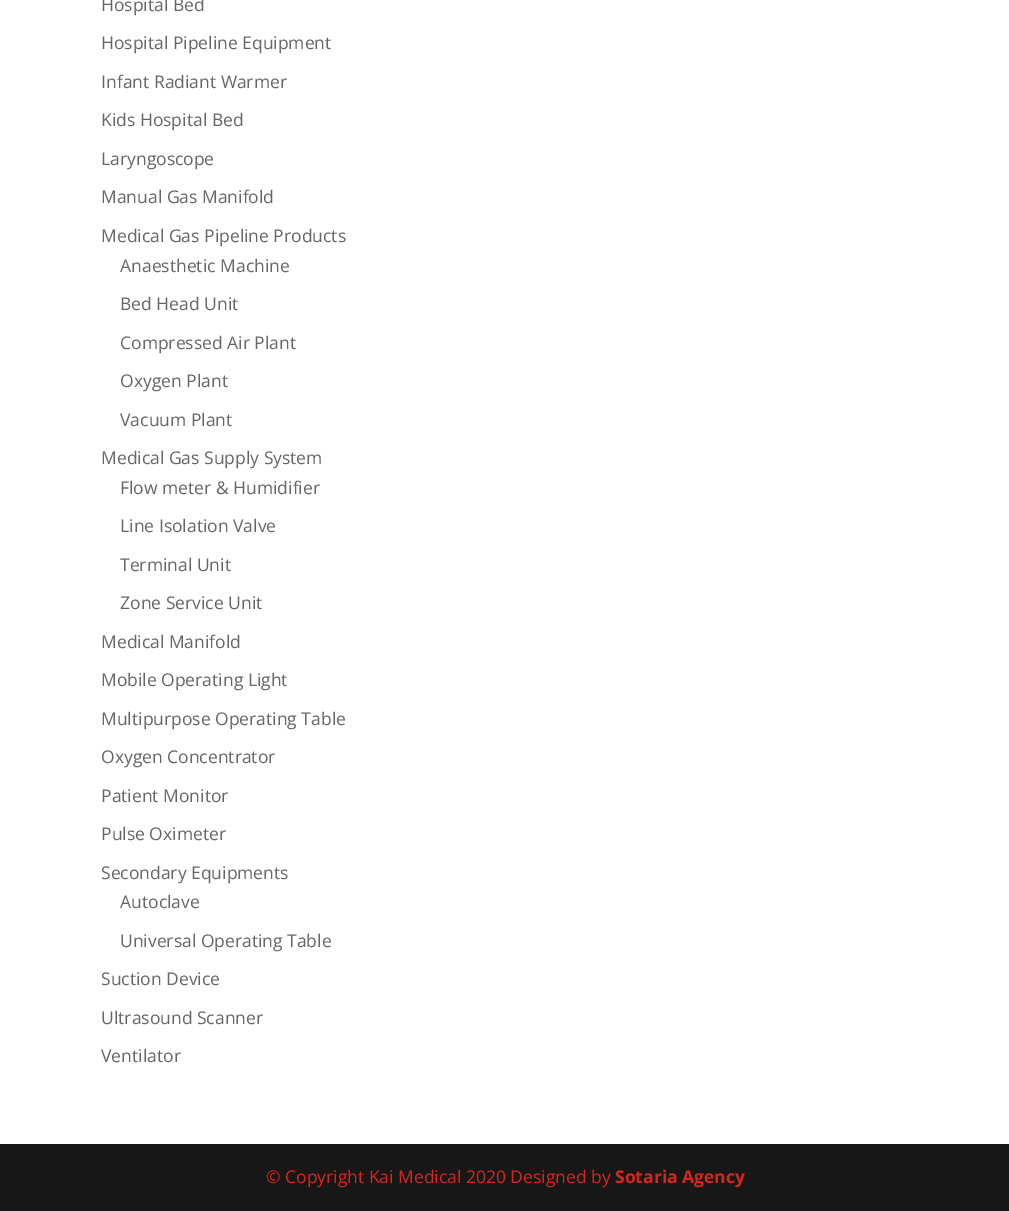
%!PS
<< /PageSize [1009 1211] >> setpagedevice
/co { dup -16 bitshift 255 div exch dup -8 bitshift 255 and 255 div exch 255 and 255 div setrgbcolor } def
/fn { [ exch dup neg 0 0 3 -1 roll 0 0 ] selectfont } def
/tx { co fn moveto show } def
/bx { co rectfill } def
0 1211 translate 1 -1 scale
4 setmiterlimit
0 0 1009 1211 16#FFFFFF bx
0 1144 1009 67 16#171717 bx
(Hospital Bed) 101 11 /OpenSans-Regular 17.5 16#666666 tx
(Hospital Pipeline Equipment) 101 49 /OpenSans-Regular 17.5 16#666666 tx
(Infant Radiant Warmer) 101 88 /OpenSans-Regular 17.5 16#666666 tx
(Kids Hospital Bed) 101 126 /OpenSans-Regular 17.5 16#666666 tx
(Laryngoscope) 101 165 /OpenSans-Regular 17.5 16#666666 tx
(Manual Gas Manifold) 101 203 /OpenSans-Regular 17.5 16#666666 tx
(Medical Gas Pipeline Products) 101 242 /OpenSans-Regular 17.5 16#666666 tx
(Anaesthetic Machine) 120 272 /OpenSans-Regular 17.5 16#666666 tx
(Bed Head Unit) 120 310 /OpenSans-Regular 17.5 16#666666 tx
(Compressed Air Plant) 120 349 /OpenSans-Regular 17.5 16#666666 tx
(Oxygen Plant) 120 387 /OpenSans-Regular 17.5 16#666666 tx
(Vacuum Plant) 120 426 /OpenSans-Regular 17.5 16#666666 tx
(Medical Gas Supply System) 101 464 /OpenSans-Regular 17.5 16#666666 tx
(Flow meter & Humidifier) 120 494 /OpenSans-Regular 17.5 16#666666 tx
(Line Isolation Valve) 120 532 /OpenSans-Regular 17.5 16#666666 tx
(Terminal Unit) 120 571 /OpenSans-Regular 17.5 16#666666 tx
(Zone Service Unit) 120 609 /OpenSans-Regular 17.5 16#666666 tx
(Medical Manifold) 101 648 /OpenSans-Regular 17.5 16#666666 tx
(Mobile Operating Light) 101 686 /OpenSans-Regular 17.5 16#666666 tx
(Multipurpose Operating Table) 101 725 /OpenSans-Regular 17.5 16#666666 tx
(Oxygen Concentrator) 101 763 /OpenSans-Regular 17.5 16#666666 tx
(Patient Monitor) 101 802 /OpenSans-Regular 17.5 16#666666 tx
(Pulse Oximeter) 101 840 /OpenSans-Regular 17.5 16#666666 tx
(Secondary Equipments) 101 879 /OpenSans-Regular 17.5 16#666666 tx
(Autoclave) 120 908 /OpenSans-Regular 17.5 16#666666 tx
(Universal Operating Table) 120 947 /OpenSans-Regular 17.5 16#666666 tx
(Suction Device) 101 985 /OpenSans-Regular 17.5 16#666666 tx
(Ultrasound Scanner) 101 1024 /OpenSans-Regular 17.5 16#666666 tx
(Ventilator) 101 1062 /OpenSans-Regular 17.5 16#666666 tx
(© Copyright Kai Medical 2020 Designed by) 266 1183 /OpenSans-Regular 17.5 16#DA251C tx
(Sotaria Agency) 615 1183 /OpenSans-Bold 17.5 16#DA251C tx
showpage
